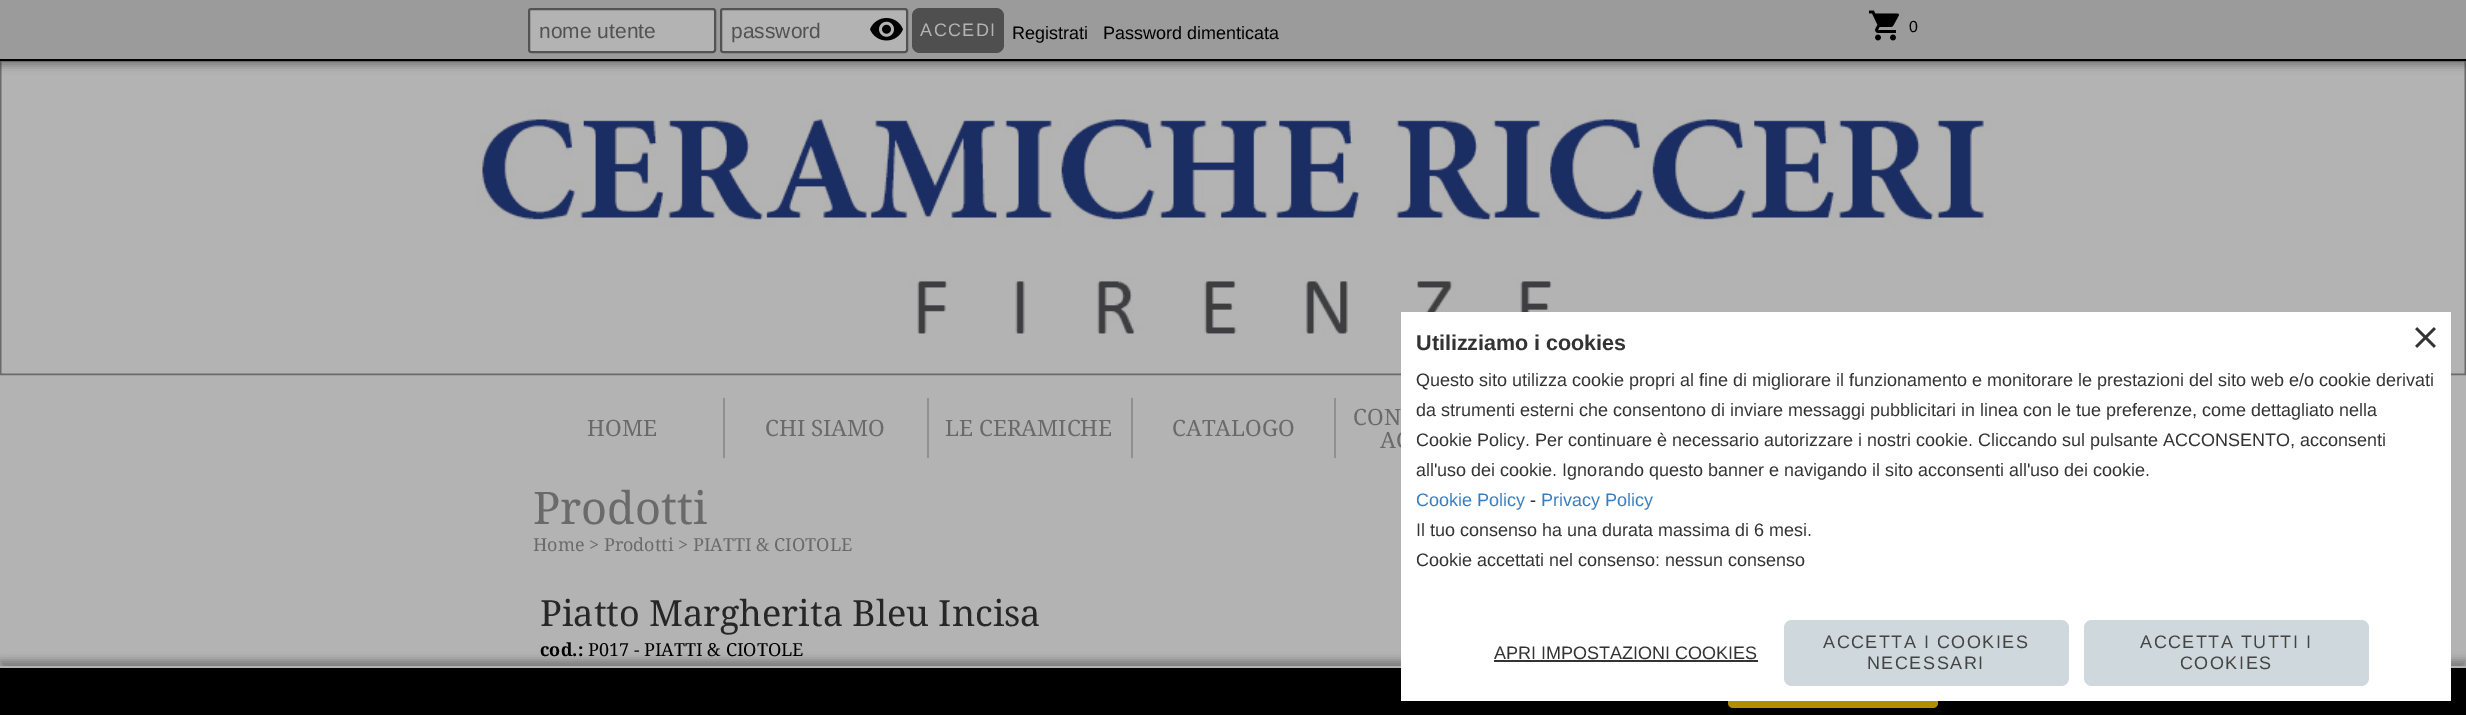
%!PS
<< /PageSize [2466 715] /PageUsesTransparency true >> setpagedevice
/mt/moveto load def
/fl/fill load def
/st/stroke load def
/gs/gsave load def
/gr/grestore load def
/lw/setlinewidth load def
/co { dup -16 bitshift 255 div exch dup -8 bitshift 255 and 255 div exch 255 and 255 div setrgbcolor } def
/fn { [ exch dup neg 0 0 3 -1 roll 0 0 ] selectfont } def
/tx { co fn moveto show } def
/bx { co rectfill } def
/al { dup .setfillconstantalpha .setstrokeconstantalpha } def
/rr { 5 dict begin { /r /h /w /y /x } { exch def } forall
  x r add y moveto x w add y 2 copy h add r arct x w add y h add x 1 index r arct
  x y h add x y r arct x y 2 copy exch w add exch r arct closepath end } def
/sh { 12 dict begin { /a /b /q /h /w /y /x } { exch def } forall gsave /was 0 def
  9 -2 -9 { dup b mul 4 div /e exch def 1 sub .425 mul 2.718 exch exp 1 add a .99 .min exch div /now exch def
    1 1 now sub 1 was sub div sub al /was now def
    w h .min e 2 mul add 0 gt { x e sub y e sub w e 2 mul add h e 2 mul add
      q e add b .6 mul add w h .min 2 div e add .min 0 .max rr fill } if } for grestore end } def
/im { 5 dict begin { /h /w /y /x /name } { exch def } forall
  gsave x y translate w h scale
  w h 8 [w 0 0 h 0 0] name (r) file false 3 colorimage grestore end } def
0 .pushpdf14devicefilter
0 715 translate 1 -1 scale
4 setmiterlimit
0 0 2466 715 16#B3B3B3 bx
16#6A6A6A co
2 lw
1 61 2464 313 rectstroke
(media/3.raw) 1 61 2464 313 im
16#000000 co
0 6 2466 60 0 4 .3 sh
0 0 2466 59 16#9B9B9B bx
0 59 2466 2 16#000000 bx
16#B3B3B3 co
529 9 186 43 2 rr gs fl gr
16#535353 co
st
16#B3B3B3 co
721 9 186 43 2 rr gs fl gr
16#535353 co
st
(media/1.raw) 870 18 33 23 im
16#504F4F co
912 8 92 45 8 rr fl
(media/2.raw) 1868 10 31 31 im
723 398 2 60 16#909090 bx
927 398 2 60 16#909090 bx
1131 398 2 60 16#909090 bx
1334 398 2 60 16#909090 bx
16#000000 co
0 660 2466 50 0 4 .3 sh
0 668 2466 47 16#000000 bx
0 666 2466 2 16#B3B3B3 bx
16#B38F00 co
1728 675 210 33 5 rr fl
(nome utente) 539 38 /LiberationSans-Regular 21 16#525252 tx
(password) 731 38 /LiberationSans-Regular 21 16#525252 tx
/LiberationSans-Regular 18 fn
16#B3B3B3 co
920 36 mt 1.5 0 (ACCEDI) ashow
(Registrati) 1012 39 /LiberationSans-Regular 18 16#000000 tx
(Password dimenticata) 1103 39 /LiberationSans-Regular 18 16#000000 tx
(0) 1909 32 /LiberationSans-Regular 16 16#000000 tx
(HOME) 587 436 /NotoSerif-Regular 22.5 16#6A6A6A tx
(CHI SIAMO) 765 436 /NotoSerif-Regular 22.5 16#6A6A6A tx
(LE CERAMICHE) 945 436 /NotoSerif-Regular 22.5 16#6A6A6A tx
(CATALOGO) 1172 436 /NotoSerif-Regular 22.5 16#6A6A6A tx
(CON) 1353 425 /NotoSerif-Regular 22.5 16#6A6A6A tx
(AC) 1380 448 /NotoSerif-Regular 22.5 16#6A6A6A tx
1401 312 1050 389 16#FFFFFF bx
(media/4.raw) 2415 327 21 21 im
(Utilizziamo i cookies) 1416 350 /LiberationSans-Bold 21.5 16#333333 tx
(Questo sito utilizza cookie propri al fine di migliorare il funzionamento e monitorare le prestazioni del sito web e/o cookie derivati) 1416 386 /LiberationSans-Regular 18 16#333333 tx
(da strumenti esterni che consentono di inviare messaggi pubblicitari in linea con le tue preferenze, come dettagliato nella) 1416 416 /LiberationSans-Regular 18 16#333333 tx
(Cookie Policy. Per continuare è necessario autorizzare i nostri cookie. Cliccando sul pulsante ACCONSENTO, acconsenti) 1416 446 /LiberationSans-Regular 18 16#333333 tx
(all'uso dei cookie. Ignorando questo banner e navigando il sito acconsenti all'uso dei cookie.) 1416 476 /LiberationSans-Regular 18 16#333333 tx
(Cookie Policy) 1416 506 /LiberationSans-Regular 18 16#3A7DBD tx
(-) 1530 506 /LiberationSans-Regular 18 16#333333 tx
(Privacy Policy) 1541 506 /LiberationSans-Regular 18 16#3A7DBD tx
(Il tuo consenso ha una durata massima di 6 mesi.) 1416 536 /LiberationSans-Regular 18 16#333333 tx
(Cookie accettati nel consenso: nessun consenso) 1416 566 /LiberationSans-Regular 18 16#333333 tx
(APRI IMPOSTAZIONI COOKIES) 1494 659 /LiberationSans-Regular 18 16#333333 tx
1494 660 264 2 16#333333 bx
16#CFD8DC co
1784 620 285 66 8 rr fl
16#444444 co
1823 648 mt 1.5 0 (ACCETTA I COOKIES) ashow
1867 669 mt 1.5 0 (NECESSARI) ashow
16#CFD8DC co
2084 620 285 66 8 rr fl
16#444444 co
2140 648 mt 1.5 0 (ACCETTA TUTTI I) ashow
2180 669 mt 1.5 0 (COOKIES) ashow
(Prodotti) 533 524 /NotoSerif-Regular 45 16#6A6A6A tx
(Home > Prodotti > PIATTI & CIOTOLE) 533 551 /NotoSerif-Regular 18 16#6A6A6A tx
(Piatto Margherita Bleu Incisa) 540 626 /NotoSerif-Regular 36 16#272727 tx
(cod.:) 540 656 /NotoSerif-Bold 18 16#000000 tx
(P017 - PIATTI & CIOTOLE) 588 656 /NotoSerif-Regular 18 16#000000 tx
.poppdf14devicefilter showpage
